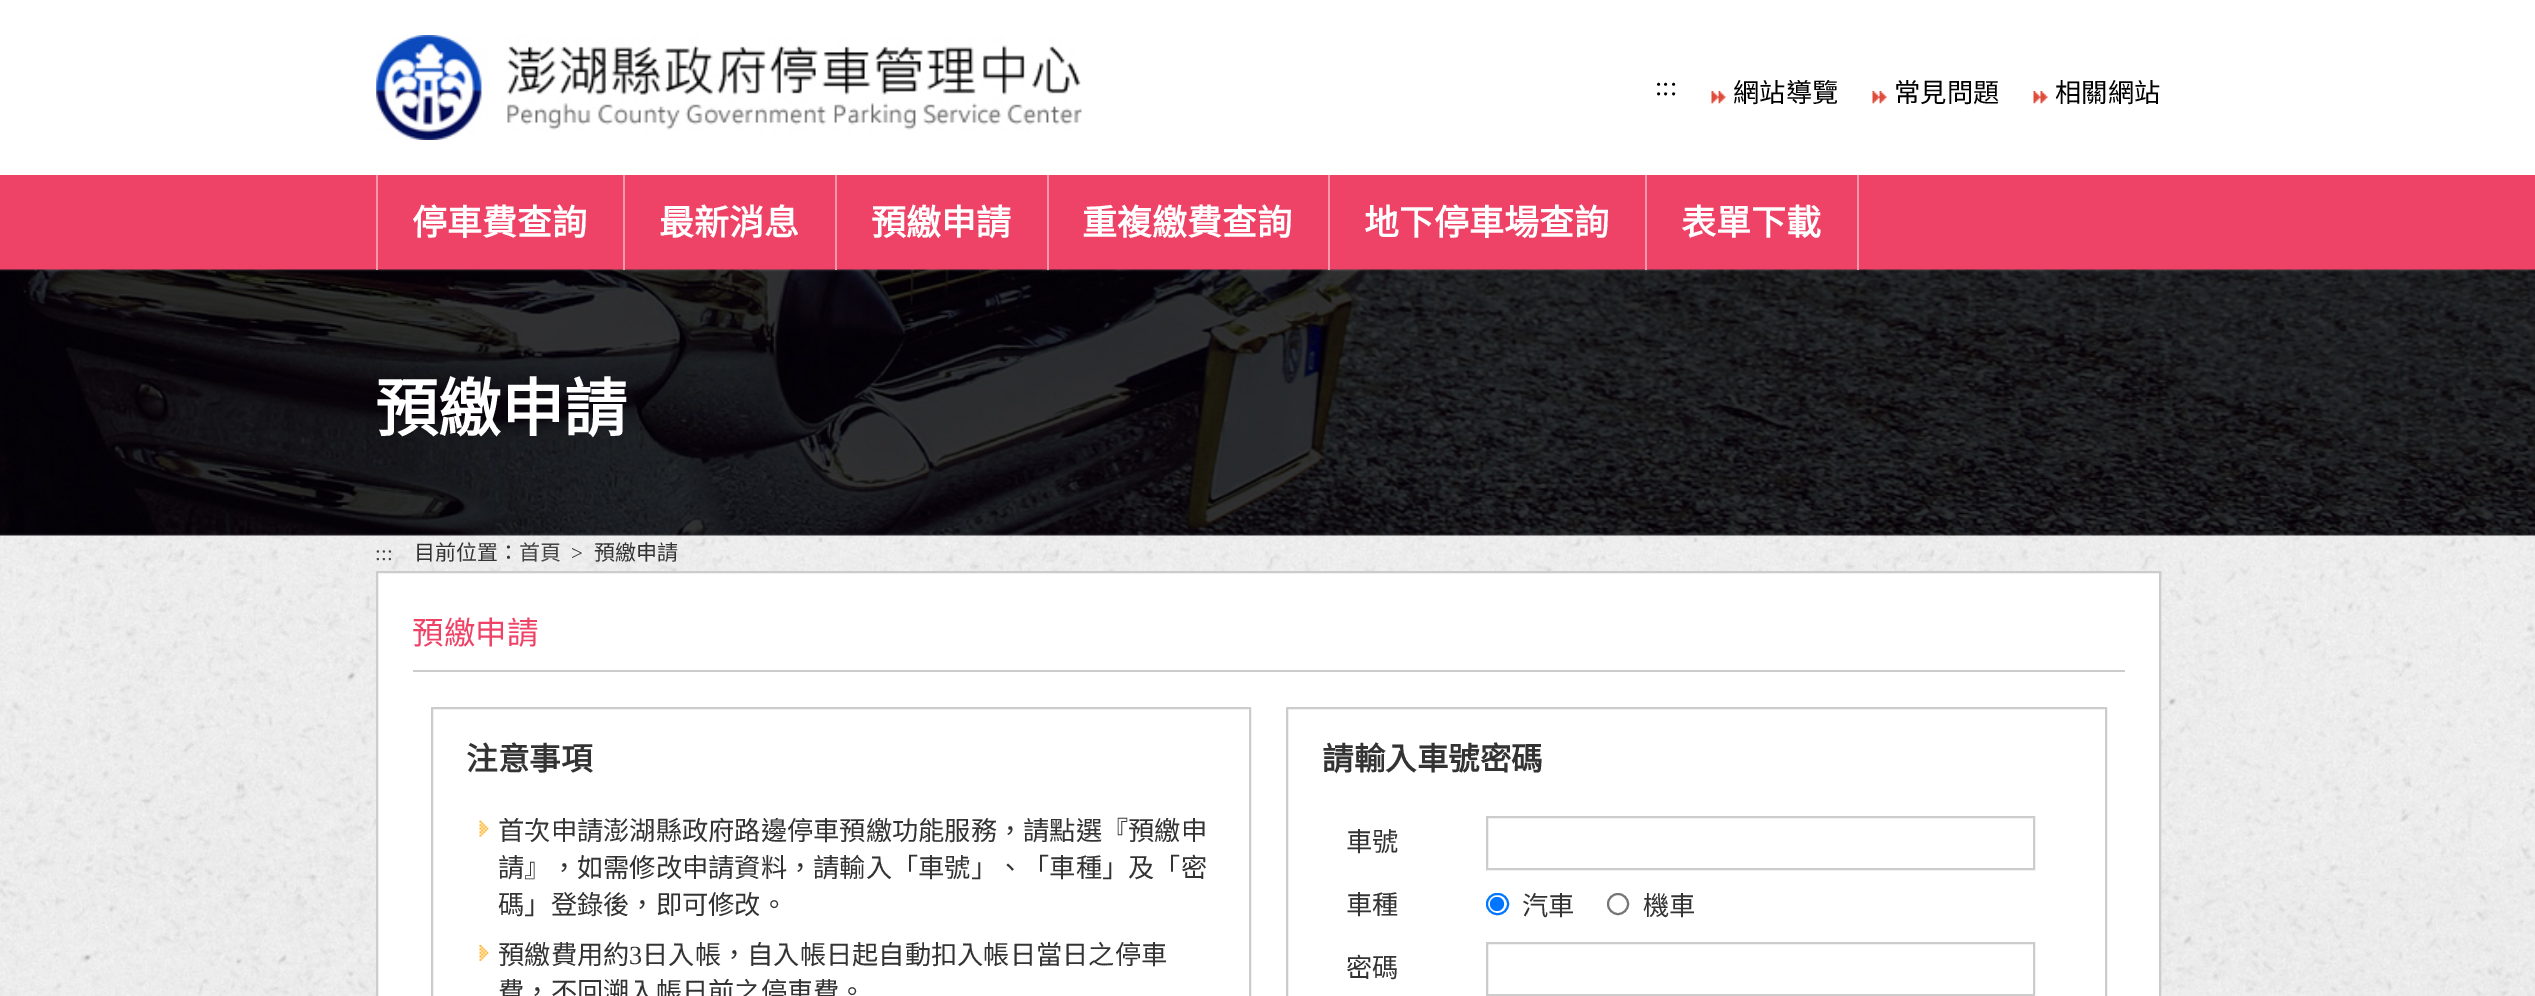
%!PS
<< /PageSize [2535 996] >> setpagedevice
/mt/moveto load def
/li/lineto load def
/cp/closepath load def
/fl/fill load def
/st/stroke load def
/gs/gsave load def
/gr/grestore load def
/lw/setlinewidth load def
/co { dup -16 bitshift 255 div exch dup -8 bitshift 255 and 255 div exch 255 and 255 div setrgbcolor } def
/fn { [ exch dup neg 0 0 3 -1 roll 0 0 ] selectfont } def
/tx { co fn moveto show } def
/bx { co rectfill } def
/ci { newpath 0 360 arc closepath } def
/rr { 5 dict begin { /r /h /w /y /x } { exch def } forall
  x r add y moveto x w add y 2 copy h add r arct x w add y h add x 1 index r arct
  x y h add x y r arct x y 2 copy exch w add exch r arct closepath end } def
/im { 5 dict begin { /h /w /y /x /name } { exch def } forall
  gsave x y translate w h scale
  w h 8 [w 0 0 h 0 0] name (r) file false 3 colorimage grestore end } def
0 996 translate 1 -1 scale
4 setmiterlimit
0 0 2535 996 16#FFFFFF bx
(media/1.raw) 0 535 2535 461 im
(media/2.raw) 376 35 706 105 im
(media/3.raw) 1711 91 15 13 im
(media/3.raw) 1872 91 15 13 im
(media/4.raw) 2033 91 15 13 im
0 175 2535 95 16#EE4266 bx
(media/5.raw) 0 269 2535 267 im
376 175 2 95 16#F697AB bx
623 175 2 95 16#F697AB bx
835 175 2 95 16#F697AB bx
1047 175 2 95 16#F697AB bx
1328 175 2 95 16#F697AB bx
1645 175 2 95 16#F697AB bx
1857 175 2 95 16#F697AB bx
16#FFFFFF co
377 572 mt 2160 572 li 2160 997 li 377 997 li cp gs fl gr
16#CCCCCC co
2 lw
st
413 670 1712 2 16#CCCCCC bx
432 708 818 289 rectstroke
(media/6.raw) 479 820 10 17 im
(media/7.raw) 479 945 10 16 im
1287 708 819 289 rectstroke
1487 817 547 52 rectstroke
16#0075FF co
1487 894 21 20 10 rr st
1497 904 7 ci fl
16#767676 co
1618 904 10 ci st
16#CCCCCC co
1487 943 547 52 rectstroke
(:::) 1655 95 /LiberationSerif-Regular 26.25 16#000000 tx
(網站導覽) 1733 102 /NotoSansCJKTC-Regular 26.25 16#000000 tx
(常見問題) 1894 102 /NotoSansCJKTC-Regular 26.25 16#000000 tx
(相關網站) 2055 102 /NotoSansCJKTC-Regular 26.25 16#000000 tx
(停車費查詢) 412 235 /NotoSansCJKTC-Bold 35 16#FFFFFF tx
(最新消息) 659 235 /NotoSansCJKTC-Bold 35 16#FFFFFF tx
(預繳申請) 871 235 /NotoSansCJKTC-Bold 35 16#FFFFFF tx
(重複繳費查詢) 1082 235 /NotoSansCJKTC-Bold 35 16#FFFFFF tx
(地下停車場查詢) 1364 235 /NotoSansCJKTC-Bold 35 16#FFFFFF tx
(表單下載) 1681 235 /NotoSansCJKTC-Bold 35 16#FFFFFF tx
(預繳申請) 375 431 /NotoSansCJKTC-Bold 63 16#FFFFFF tx
(:::) 375 560 /LiberationSerif-Regular 21 16#444444 tx
(目前位置：) 414 560 /NotoSansCJKTC-Regular 21 16#333333 tx
(首頁) 519 560 /NotoSansCJKTC-Regular 21 16#444444 tx
(>) 571 560 /LiberationSerif-Regular 21 16#333333 tx
(預繳申請) 594 560 /NotoSansCJKTC-Regular 21 16#333333 tx
(預繳申請) 412 644 /NotoSansCJKTC-Regular 31.5 16#EE4266 tx
(注意事項) 466 770 /NotoSansCJKTC-Bold 31.5 16#333333 tx
(首次申請澎湖縣政府路邊停車預繳功能服務，請點選『預繳申) 498 840 /NotoSansCJKTC-Regular 26.25 16#333333 tx
(請』，如需修改申請資料，請輸入「車號」、「車種」及「密) 498 877 /NotoSansCJKTC-Regular 26.25 16#333333 tx
(碼」登錄後，即可修改。) 498 914 /NotoSansCJKTC-Regular 26.25 16#333333 tx
(預繳費用約) 498 964 /NotoSansCJKTC-Regular 26.25 16#333333 tx
(3) 629 964 /LiberationSerif-Regular 26.25 16#333333 tx
(日入帳，自入帳日起自動扣入帳日當日之停車) 642 964 /NotoSansCJKTC-Regular 26.25 16#333333 tx
(費，不回溯入帳日前之停車費。) 498 1001 /NotoSansCJKTC-Regular 26.25 16#333333 tx
(請輸入車號密碼) 1322 770 /NotoSansCJKTC-Bold 31.5 16#333333 tx
(車號) 1346 851 /NotoSansCJKTC-Regular 26.25 16#333333 tx
(車種) 1346 914 /NotoSansCJKTC-Regular 26.25 16#333333 tx
(汽車) 1522 915 /NotoSansCJKTC-Regular 26.25 16#333333 tx
(機車) 1643 915 /NotoSansCJKTC-Regular 26.25 16#333333 tx
(密碼) 1346 977 /NotoSansCJKTC-Regular 26.25 16#333333 tx
showpage
